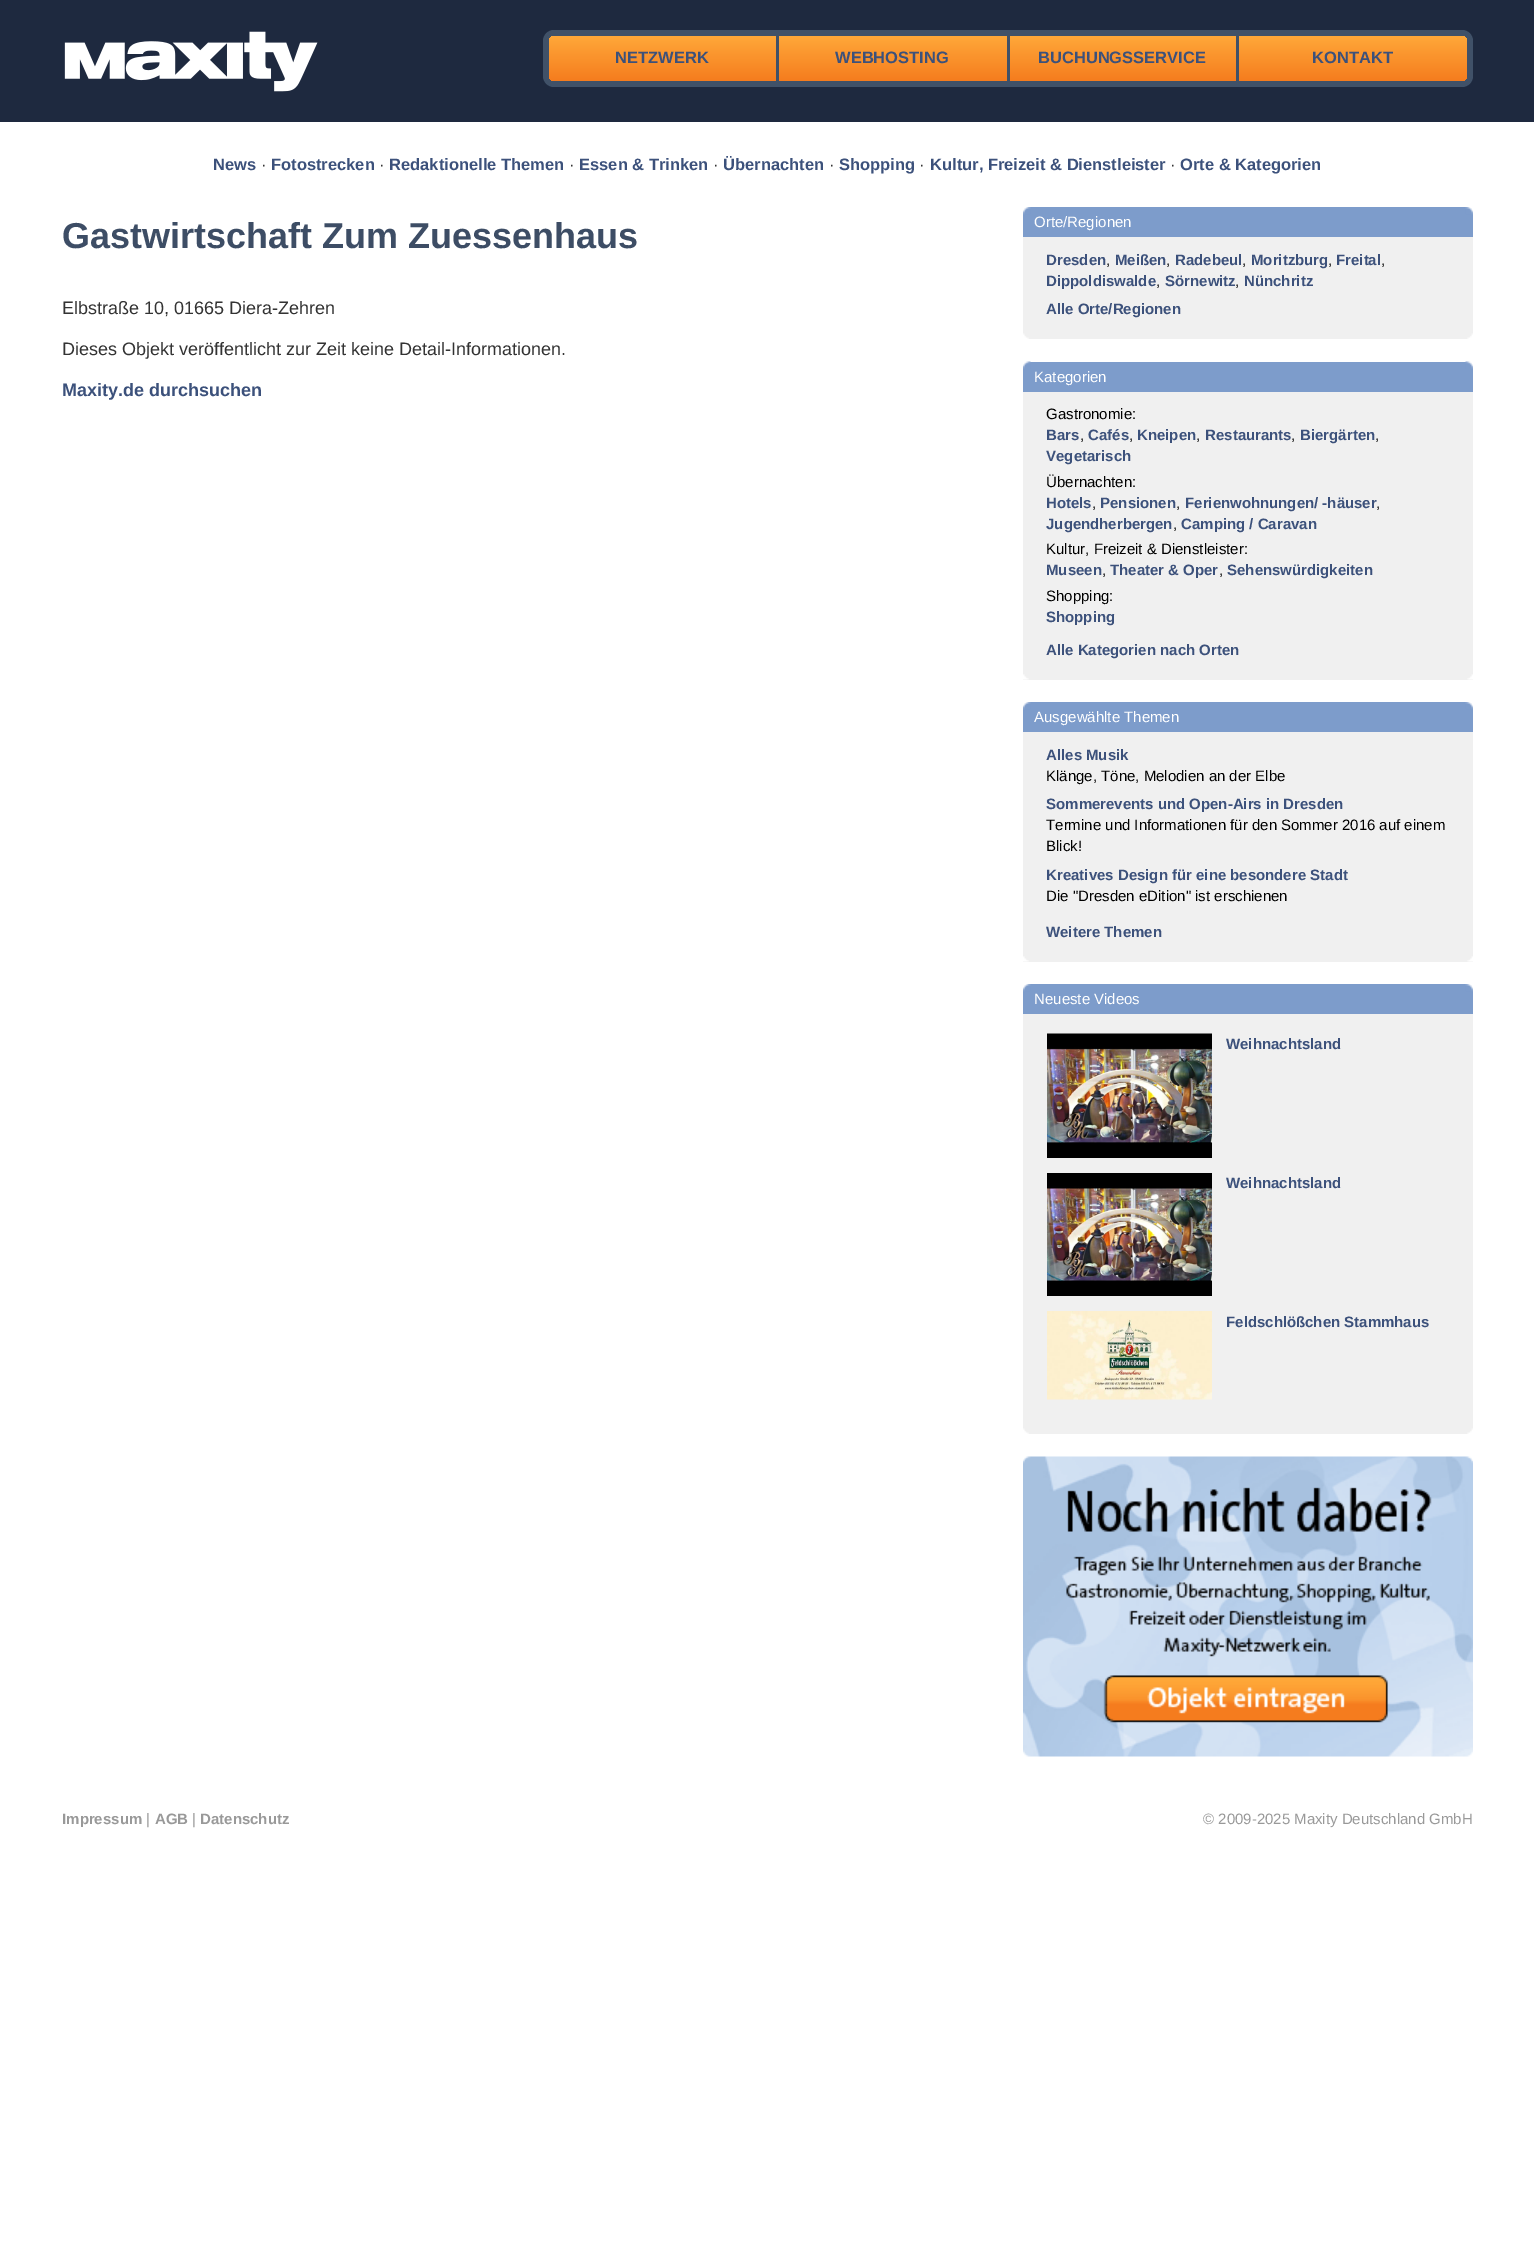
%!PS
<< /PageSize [1534 2254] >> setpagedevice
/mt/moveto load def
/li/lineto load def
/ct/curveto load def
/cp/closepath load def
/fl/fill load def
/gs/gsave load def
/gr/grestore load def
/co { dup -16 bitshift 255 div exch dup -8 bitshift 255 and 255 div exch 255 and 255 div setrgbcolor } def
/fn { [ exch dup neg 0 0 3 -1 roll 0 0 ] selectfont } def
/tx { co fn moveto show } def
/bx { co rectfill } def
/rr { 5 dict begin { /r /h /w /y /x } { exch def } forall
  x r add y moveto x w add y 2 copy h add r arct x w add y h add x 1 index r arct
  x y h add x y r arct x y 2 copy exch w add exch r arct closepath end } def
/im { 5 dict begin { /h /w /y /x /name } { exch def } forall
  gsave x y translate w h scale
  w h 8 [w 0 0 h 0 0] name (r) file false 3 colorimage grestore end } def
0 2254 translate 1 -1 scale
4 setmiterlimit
0 0 1534 2254 16#FFFFFF bx
0 0 1534 122 16#1E293F bx
(media/1.raw) 64 31 254 61 im
16#405168 co
543 30 930 57 11 rr fl
gs 555 36 mt 776 36 li 776 81 li 555 81 li 551.5 81 549 78.5 549 75 ct 549 42 li 549 38.5 551.5 36 555 36 ct cp clip newpath
<< /ShadingType 2 /ColorSpace /DeviceRGB /Coords [662 36 662 81] /Extend [true true] /Function << /FunctionType 2 /Domain [0 1] /C0 [1 .659 .224] /C1 [.961 .486 .118] /N 1 >> >> shfill gr
gs 779 36 mt 1007 36 li 1007 81 li 779 81 li cp clip newpath
<< /ShadingType 2 /ColorSpace /DeviceRGB /Coords [893 36 893 81] /Extend [true true] /Function << /FunctionType 2 /Domain [0 1] /C0 [1 .659 .224] /C1 [.961 .486 .118] /N 1 >> >> shfill gr
gs 1010 36 mt 1236 36 li 1236 81 li 1010 81 li cp clip newpath
<< /ShadingType 2 /ColorSpace /DeviceRGB /Coords [1123 36 1123 81] /Extend [true true] /Function << /FunctionType 2 /Domain [0 1] /C0 [1 .659 .224] /C1 [.961 .486 .118] /N 1 >> >> shfill gr
gs 1239 36 mt 1461 36 li 1464.5 36 1467 38.5 1467 42 ct 1467 75 li 1467 78.5 1464.5 81 1461 81 ct 1239 81 li cp clip newpath
<< /ShadingType 2 /ColorSpace /DeviceRGB /Coords [1353 36 1353 81] /Extend [true true] /Function << /FunctionType 2 /Domain [0 1] /C0 [1 .659 .224] /C1 [.961 .486 .118] /N 1 >> >> shfill gr
1023 207 450 30 16#7D9CCB bx
(media/2.raw) 1023 207 8 8 im
(media/3.raw) 1465 207 8 8 im
1023 237 450 102 16#F0F0F0 bx
(media/4.raw) 1023 333 6 6 im
(media/5.raw) 1467 333 6 6 im
1023 362 450 30 16#7D9CCB bx
(media/6.raw) 1023 361 8 8 im
(media/7.raw) 1465 361 8 8 im
1023 392 450 288 16#F0F0F0 bx
(media/8.raw) 1023 674 6 6 im
(media/9.raw) 1467 674 6 6 im
1023 702 450 30 16#7D9CCB bx
(media/2.raw) 1023 702 8 8 im
(media/3.raw) 1465 702 8 8 im
1023 732 450 230 16#F0F0F0 bx
(media/8.raw) 1023 956 6 6 im
(media/9.raw) 1467 956 6 6 im
1023 984 450 30 16#7D9CCB bx
(media/2.raw) 1023 984 8 8 im
(media/3.raw) 1465 984 8 8 im
1023 1014 450 420 16#F0F0F0 bx
(media/10.raw) 1047 1033 165 125 im
(media/11.raw) 1047 1173 165 123 im
(media/12.raw) 1047 1311 165 89 im
(media/4.raw) 1023 1428 6 6 im
(media/5.raw) 1467 1428 6 6 im
(media/13.raw) 1023 1456 450 301 im
(NETZWERK) 615 63 /LiberationSans-Bold 16.5 16#3C517B tx
(WEBHOSTING) 835 63 /LiberationSans-Bold 16.5 16#3C517B tx
(BUCHUNGSSERVICE) 1038 63 /LiberationSans-Bold 16.5 16#3C517B tx
(KONTAKT) 1312 63 /LiberationSans-Bold 16.5 16#3C517B tx
(News) 213 170 /LiberationSans-Bold 16.5 16#3C517B tx
(·) 261 170 /LiberationSans-Regular 16.5 16#333333 tx
(Fotostrecken) 271 170 /LiberationSans-Bold 16.5 16#3C517B tx
(·) 379 170 /LiberationSans-Regular 16.5 16#333333 tx
(Redaktionelle Themen) 389 170 /LiberationSans-Bold 16.5 16#3C517B tx
(·) 569 170 /LiberationSans-Regular 16.5 16#333333 tx
(Essen & Trinken) 579 170 /LiberationSans-Bold 16.5 16#3C517B tx
(·) 713 170 /LiberationSans-Regular 16.5 16#333333 tx
(Übernachten) 723 170 /LiberationSans-Bold 16.5 16#3C517B tx
(·) 829 170 /LiberationSans-Regular 16.5 16#333333 tx
(Shopping) 839 170 /LiberationSans-Bold 16.5 16#3C517B tx
(·) 919 170 /LiberationSans-Regular 16.5 16#333333 tx
(Kultur, Freizeit & Dienstleister) 930 170 /LiberationSans-Bold 16.5 16#3C517B tx
(·) 1170 170 /LiberationSans-Regular 16.5 16#333333 tx
(Orte & Kategorien) 1180 170 /LiberationSans-Bold 16.5 16#3C517B tx
(Gastwirtschaft Zum Zuessenhaus) 62 248 /LiberationSans-Bold 36 16#3D4D65 tx
(Elbstraße 10, 01665 Diera-Zehren) 62 314 /LiberationSans-Regular 18 16#333333 tx
(Dieses Objekt veröffentlicht zur Zeit keine Detail-Informationen.) 62 355 /LiberationSans-Regular 18 16#333333 tx
(Maxity.de durchsuchen) 62 396 /LiberationSans-Bold 18 16#3C517B tx
(Orte/Regionen) 1034 227 /LiberationSans-Regular 15 16#FFFFFF tx
(Dresden) 1046 265 /LiberationSans-Bold 15 16#3C517B tx
(,) 1106 265 /LiberationSans-Regular 15 16#000000 tx
(Meißen) 1115 265 /LiberationSans-Bold 15 16#3C517B tx
(,) 1166 265 /LiberationSans-Regular 15 16#000000 tx
(Radebeul) 1175 265 /LiberationSans-Bold 15 16#3C517B tx
(,) 1242 265 /LiberationSans-Regular 15 16#000000 tx
(Moritzburg) 1251 265 /LiberationSans-Bold 15 16#3C517B tx
(,) 1328 265 /LiberationSans-Regular 15 16#000000 tx
(Freital) 1336 265 /LiberationSans-Bold 15 16#3C517B tx
(,) 1381 265 /LiberationSans-Regular 15 16#000000 tx
(Dippoldiswalde) 1046 286 /LiberationSans-Bold 15 16#3C517B tx
(,) 1156 286 /LiberationSans-Regular 15 16#000000 tx
(Sörnewitz) 1165 286 /LiberationSans-Bold 15 16#3C517B tx
(,) 1235 286 /LiberationSans-Regular 15 16#000000 tx
(Nünchritz) 1244 286 /LiberationSans-Bold 15 16#3C517B tx
(Alle Orte/Regionen) 1046 314 /LiberationSans-Bold 15 16#3C517B tx
(Kategorien) 1034 382 /LiberationSans-Regular 15 16#FFFFFF tx
(Gastronomie:) 1046 419 /LiberationSans-Regular 15 16#000000 tx
(Bars) 1046 440 /LiberationSans-Bold 15 16#3C517B tx
(,) 1080 440 /LiberationSans-Regular 15 16#000000 tx
(Cafés) 1088 440 /LiberationSans-Bold 15 16#3C517B tx
(,) 1129 440 /LiberationSans-Regular 15 16#000000 tx
(Kneipen) 1137 440 /LiberationSans-Bold 15 16#3C517B tx
(,) 1196 440 /LiberationSans-Regular 15 16#000000 tx
(Restaurants) 1205 440 /LiberationSans-Bold 15 16#3C517B tx
(,) 1291 440 /LiberationSans-Regular 15 16#000000 tx
(Biergärten) 1300 440 /LiberationSans-Bold 15 16#3C517B tx
(,) 1375 440 /LiberationSans-Regular 15 16#000000 tx
(Vegetarisch) 1046 461 /LiberationSans-Bold 15 16#3C517B tx
(Übernachten:) 1046 487 /LiberationSans-Regular 15 16#000000 tx
(Hotels) 1046 508 /LiberationSans-Bold 15 16#3C517B tx
(,) 1092 508 /LiberationSans-Regular 15 16#000000 tx
(Pensionen) 1100 508 /LiberationSans-Bold 15 16#3C517B tx
(,) 1176 508 /LiberationSans-Regular 15 16#000000 tx
(Ferienwohnungen/ -häuser) 1185 508 /LiberationSans-Bold 15 16#3C517B tx
(,) 1376 508 /LiberationSans-Regular 15 16#000000 tx
(Jugendherbergen) 1046 529 /LiberationSans-Bold 15 16#3C517B tx
(,) 1173 529 /LiberationSans-Regular 15 16#000000 tx
(Camping / Caravan) 1181 529 /LiberationSans-Bold 15 16#3C517B tx
(Kultur, Freizeit & Dienstleister:) 1046 554 /LiberationSans-Regular 15 16#000000 tx
(Museen) 1046 575 /LiberationSans-Bold 15 16#3C517B tx
(,) 1102 575 /LiberationSans-Regular 15 16#000000 tx
(Theater & Oper) 1110 575 /LiberationSans-Bold 15 16#3C517B tx
(,) 1219 575 /LiberationSans-Regular 15 16#000000 tx
(Sehenswürdigkeiten) 1227 575 /LiberationSans-Bold 15 16#3C517B tx
(Shopping:) 1046 601 /LiberationSans-Regular 15 16#000000 tx
(Shopping) 1046 622 /LiberationSans-Bold 15 16#3C517B tx
(Alle Kategorien nach Orten) 1046 655 /LiberationSans-Bold 15 16#3C517B tx
(Ausgewählte Themen) 1034 722 /LiberationSans-Regular 15 16#FFFFFF tx
(Alles Musik) 1046 760 /LiberationSans-Bold 15 16#3C517B tx
(Klänge, Töne, Melodien an der Elbe) 1046 781 /LiberationSans-Regular 15 16#000000 tx
(Sommerevents und Open-Airs in Dresden) 1046 809 /LiberationSans-Bold 15 16#3C517B tx
(Termine und Informationen für den Sommer 2016 auf einem) 1046 830 /LiberationSans-Regular 15 16#000000 tx
(Blick!) 1046 851 /LiberationSans-Regular 15 16#000000 tx
(Kreatives Design für eine besondere Stadt) 1046 880 /LiberationSans-Bold 15 16#3C517B tx
(Die "Dresden eDition" ist erschienen) 1046 901 /LiberationSans-Regular 15 16#000000 tx
(Weitere Themen) 1046 937 /LiberationSans-Bold 15 16#3C517B tx
(Neueste Videos) 1034 1004 /LiberationSans-Regular 15 16#FFFFFF tx
(Weihnachtsland) 1226 1049 /LiberationSans-Bold 15 16#3C517B tx
(Weihnachtsland) 1226 1188 /LiberationSans-Bold 15 16#3C517B tx
(Feldschlößchen Stammhaus) 1226 1327 /LiberationSans-Bold 15 16#3C517B tx
(Impressum) 62 1824 /LiberationSans-Bold 15 16#999999 tx
(|) 146 1824 /LiberationSans-Regular 15 16#999999 tx
(AGB) 155 1824 /LiberationSans-Bold 15 16#999999 tx
(|) 192 1824 /LiberationSans-Regular 15 16#999999 tx
(Datenschutz) 200 1824 /LiberationSans-Bold 15 16#999999 tx
(© 2009-2025 Maxity Deutschland GmbH) 1203 1824 /LiberationSans-Regular 15 16#999999 tx
showpage
